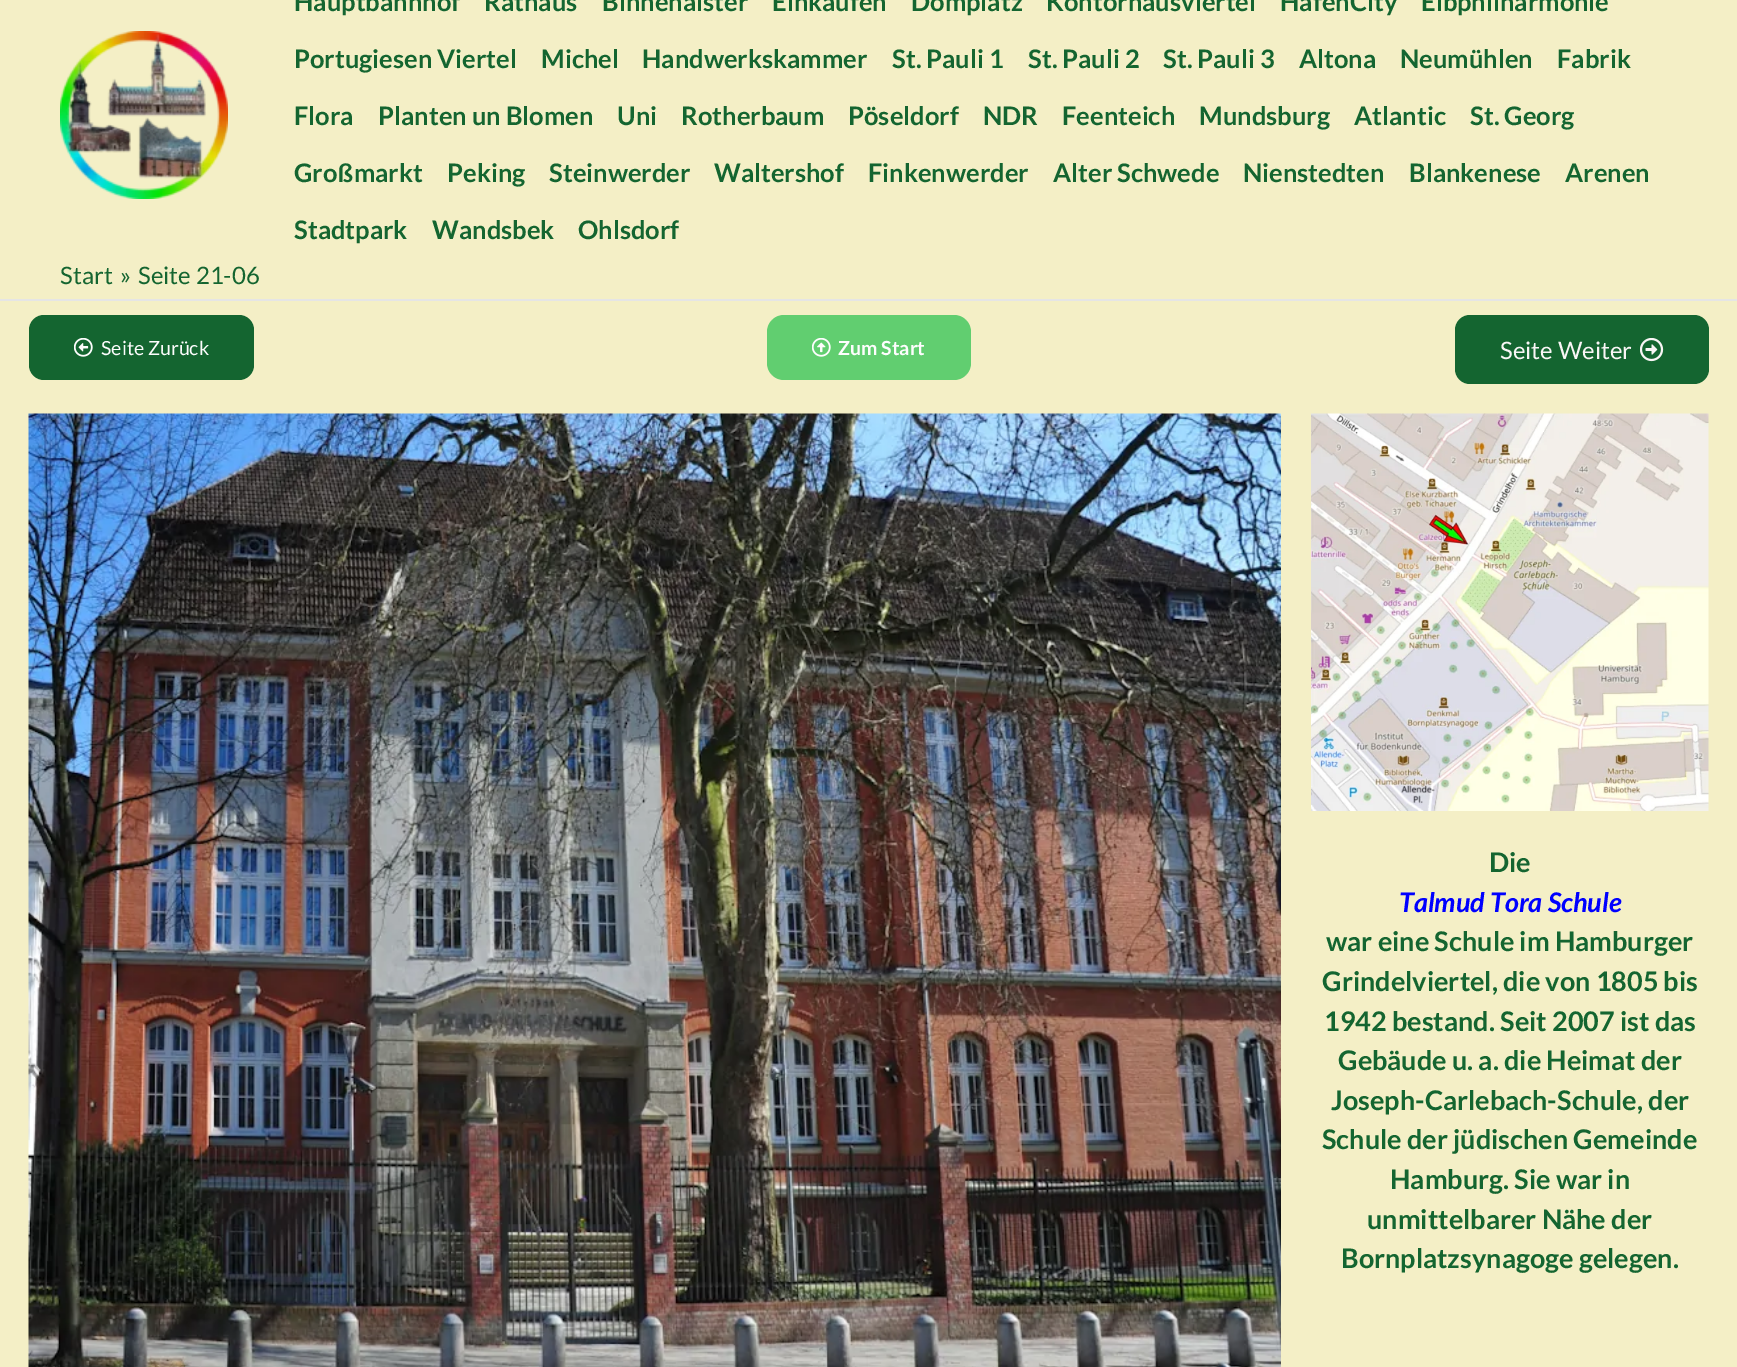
%!PS
<< /PageSize [1737 1367] >> setpagedevice
/fl/fill load def
/co { dup -16 bitshift 255 div exch dup -8 bitshift 255 and 255 div exch 255 and 255 div setrgbcolor } def
/fn { [ exch dup neg 0 0 3 -1 roll 0 0 ] selectfont } def
/tx { co fn moveto show } def
/bx { co rectfill } def
/rr { 5 dict begin { /r /h /w /y /x } { exch def } forall
  x r add y moveto x w add y 2 copy h add r arct x w add y h add x 1 index r arct
  x y h add x y r arct x y 2 copy exch w add exch r arct closepath end } def
/im { 5 dict begin { /h /w /y /x /name } { exch def } forall
  gsave x y translate w h scale
  w h 8 [w 0 0 h 0 0] name (r) file false 3 colorimage grestore end } def
0 1367 translate 1 -1 scale
4 setmiterlimit
0 0 1737 1367 16#F4EFC6 bx
0 299 1737 2 16#E5E5E5 bx
(media/1.raw) 60 31 168 168 im
16#146530 co
29 315 225 65 15 rr fl
(media/2.raw) 74 338 19 19 im
16#61CE70 co
767 315 204 65 17 rr fl
(media/3.raw) 812 338 19 19 im
16#146530 co
1455 315 254 69 15 rr fl
(media/4.raw) 1640 338 24 24 im
(media/5.raw) 28 413 1253 954 im
(media/6.raw) 1311 413 398 398 im
(Hauptbahnhof) 294 11 /Lato-Bold 25.5 16#146530 tx
(Rathaus) 484 11 /Lato-Bold 25.5 16#146530 tx
(Binnenalster) 602 11 /Lato-Bold 25.5 16#146530 tx
(Einkaufen) 772 11 /Lato-Bold 25.5 16#146530 tx
(Domplatz) 911 11 /Lato-Bold 25.5 16#146530 tx
(Kontorhausviertel) 1046 11 /Lato-Bold 25.5 16#146530 tx
(HafenCity) 1280 11 /Lato-Bold 25.5 16#146530 tx
(Elbphilharmonie) 1421 11 /Lato-Bold 25.5 16#146530 tx
(Portugiesen Viertel) 294 68 /Lato-Bold 25.5 16#146530 tx
(Michel) 541 68 /Lato-Bold 25.5 16#146530 tx
(Handwerkskammer) 642 68 /Lato-Bold 25.5 16#146530 tx
(St. Pauli 1) 892 68 /Lato-Bold 25.5 16#146530 tx
(St. Pauli 2) 1028 68 /Lato-Bold 25.5 16#146530 tx
(St. Pauli 3) 1163 68 /Lato-Bold 25.5 16#146530 tx
(Altona) 1299 68 /Lato-Bold 25.5 16#146530 tx
(Neumühlen) 1400 68 /Lato-Bold 25.5 16#146530 tx
(Fabrik) 1557 68 /Lato-Bold 25.5 16#146530 tx
(Flora) 294 125 /Lato-Bold 25.5 16#146530 tx
(Planten un Blomen) 378 125 /Lato-Bold 25.5 16#146530 tx
(Uni) 617 125 /Lato-Bold 25.5 16#146530 tx
(Rotherbaum) 681 125 /Lato-Bold 25.5 16#146530 tx
(Pöseldorf) 848 125 /Lato-Bold 25.5 16#146530 tx
(NDR) 983 125 /Lato-Bold 25.5 16#146530 tx
(Feenteich) 1062 125 /Lato-Bold 25.5 16#146530 tx
(Mundsburg) 1199 125 /Lato-Bold 25.5 16#146530 tx
(Atlantic) 1354 125 /Lato-Bold 25.5 16#146530 tx
(St. Georg) 1470 125 /Lato-Bold 25.5 16#146530 tx
(Großmarkt) 294 182 /Lato-Bold 25.5 16#146530 tx
(Peking) 447 182 /Lato-Bold 25.5 16#146530 tx
(Steinwerder) 549 182 /Lato-Bold 25.5 16#146530 tx
(Waltershof) 714 182 /Lato-Bold 25.5 16#146530 tx
(Finkenwerder) 868 182 /Lato-Bold 25.5 16#146530 tx
(Alter Schwede) 1053 182 /Lato-Bold 25.5 16#146530 tx
(Nienstedten) 1243 182 /Lato-Bold 25.5 16#146530 tx
(Blankenese) 1409 182 /Lato-Bold 25.5 16#146530 tx
(Arenen) 1565 182 /Lato-Bold 25.5 16#146530 tx
(Stadtpark) 294 239 /Lato-Bold 25.5 16#146530 tx
(Wandsbek) 432 239 /Lato-Bold 25.5 16#146530 tx
(Ohlsdorf) 578 239 /Lato-Bold 25.5 16#146530 tx
(Start) 60 284 /Lato-Regular 24 16#146530 tx
(») 120 284 /Lato-Regular 24 16#146530 tx
(Seite 21-06) 138 284 /Lato-Regular 24 16#146530 tx
(Seite Zurück) 101 355 /Lato-Regular 19.5 16#FDFDFD tx
(Zum Start) 838 355 /Lato-Bold 19.5 16#FDFDFD tx
(Seite Weiter) 1500 359 /Lato-Regular 24 16#F9F6F6 tx
(Die) 1489 872 /Lato-Bold 27 16#146530 tx
(Talmud Tora Schule) 1399 912 /Lato-BoldItalic 27 16#0000FF tx
(war eine Schule im Hamburger) 1326 951 /Lato-Bold 27 16#146530 tx
(Grindelviertel, die von 1805 bis) 1322 991 /Lato-Bold 27 16#146530 tx
(1942 bestand. Seit 2007 ist das) 1324 1031 /Lato-Bold 27 16#146530 tx
(Gebäude u. a. die Heimat der) 1338 1070 /Lato-Bold 27 16#146530 tx
(Joseph-Carlebach-Schule, der) 1331 1110 /Lato-Bold 27 16#146530 tx
(Schule der jüdischen Gemeinde) 1322 1149 /Lato-Bold 27 16#146530 tx
(Hamburg. Sie war in) 1390 1189 /Lato-Bold 27 16#146530 tx
(unmittelbarer Nähe der) 1367 1229 /Lato-Bold 27 16#146530 tx
(Bornplatzsynagoge gelegen.) 1341 1268 /Lato-Bold 27 16#146530 tx
showpage
